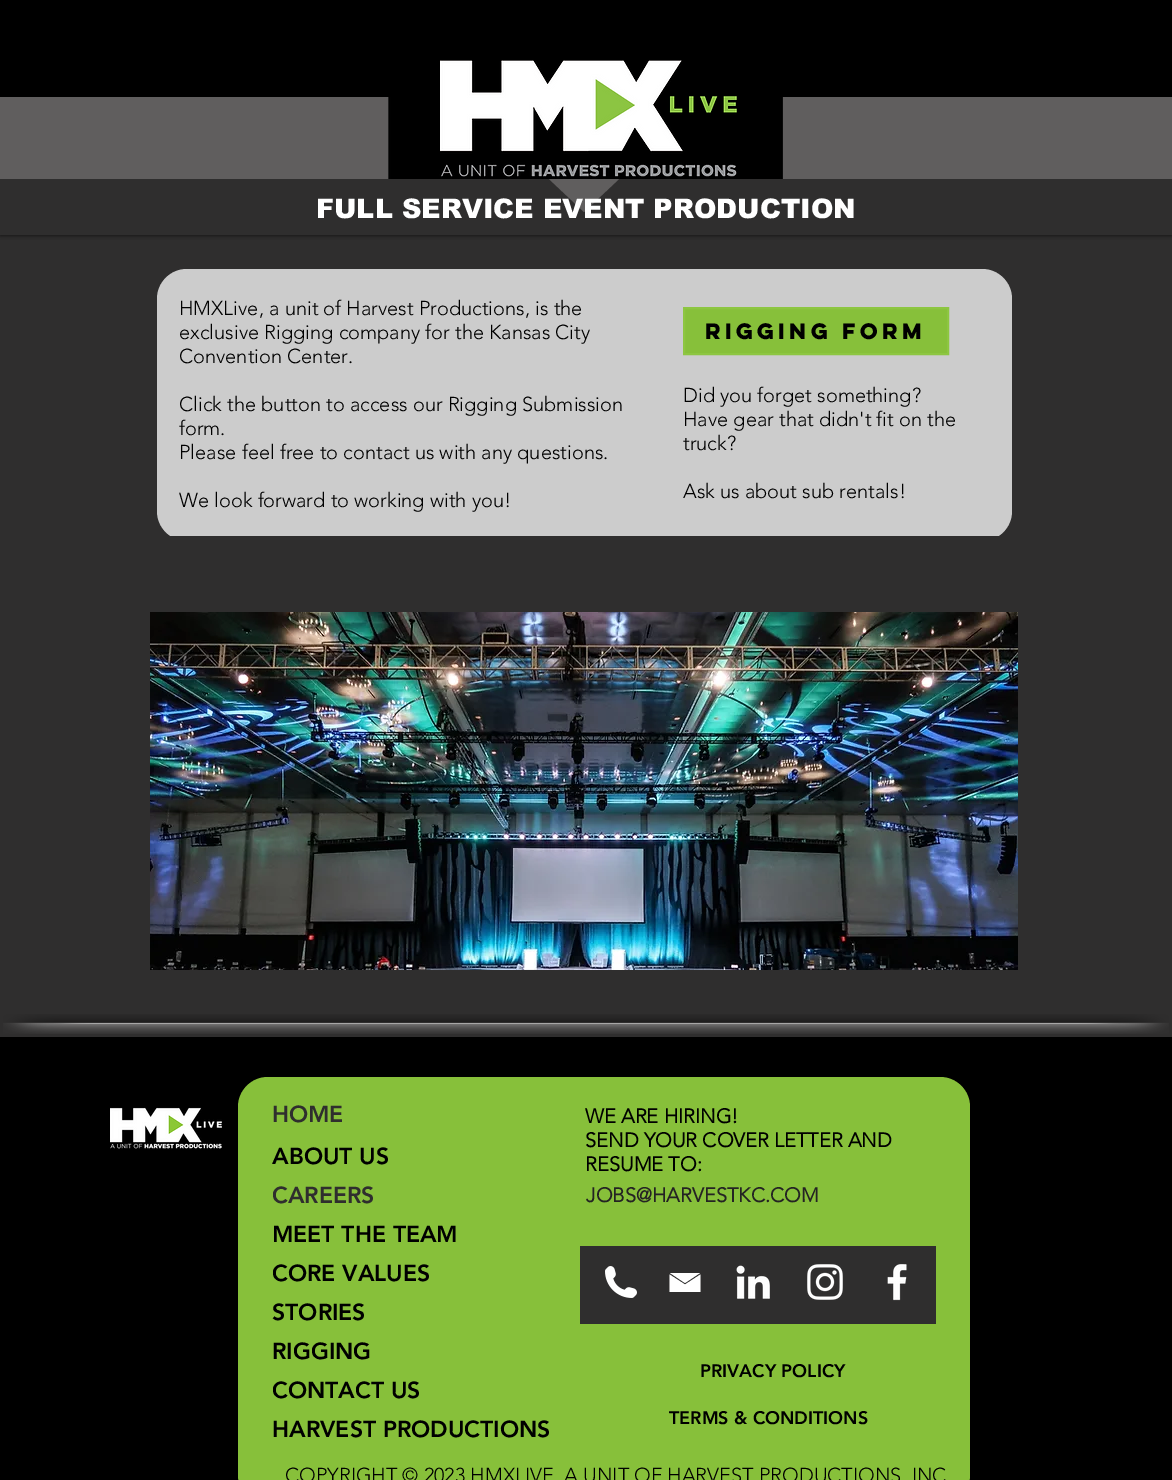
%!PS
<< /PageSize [1172 1480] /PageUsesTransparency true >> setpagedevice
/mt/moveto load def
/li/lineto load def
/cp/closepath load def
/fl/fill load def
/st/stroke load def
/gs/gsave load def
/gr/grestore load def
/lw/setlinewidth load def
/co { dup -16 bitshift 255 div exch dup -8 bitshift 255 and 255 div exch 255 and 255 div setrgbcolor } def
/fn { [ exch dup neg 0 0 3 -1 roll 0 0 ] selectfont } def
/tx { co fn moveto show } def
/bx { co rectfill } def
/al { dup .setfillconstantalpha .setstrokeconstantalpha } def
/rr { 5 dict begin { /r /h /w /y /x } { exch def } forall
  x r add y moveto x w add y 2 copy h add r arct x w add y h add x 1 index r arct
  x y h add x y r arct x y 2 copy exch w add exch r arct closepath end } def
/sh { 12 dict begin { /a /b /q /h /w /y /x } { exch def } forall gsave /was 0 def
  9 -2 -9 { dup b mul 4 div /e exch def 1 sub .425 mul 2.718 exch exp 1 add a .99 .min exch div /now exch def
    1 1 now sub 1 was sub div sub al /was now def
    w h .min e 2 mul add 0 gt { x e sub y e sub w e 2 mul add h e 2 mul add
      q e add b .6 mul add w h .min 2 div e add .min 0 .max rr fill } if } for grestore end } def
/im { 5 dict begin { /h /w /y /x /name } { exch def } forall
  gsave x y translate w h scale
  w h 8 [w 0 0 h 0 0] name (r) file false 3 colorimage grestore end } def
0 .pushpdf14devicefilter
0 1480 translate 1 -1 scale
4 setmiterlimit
0 0 1172 1480 16#000000 bx
0 179 1172 357 16#2F2E2E bx
0 97 1172 82 16#605E5E bx
584 212 mt 549 179 li 619 179 li cp fl
gs
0 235 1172 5 rectclip
16#000000 co
0 0 1172 235 0 2.5 .7 sh
gr
(media/1.raw) 388 60 395 119 im
16#CCCCCC co
157 269 855 272 30 rr fl
16#87C03A co
684 308 mt 948 308 li 948 354 li 684 354 li cp gs fl gr
16#8DC641 co
2 lw
st
0 536 1172 501 16#2F2E2E bx
(media/2.raw) 150 612 868 358 im
(media/3.raw) 3 1014 97 20 im
(media/4.raw) 100 1014 972 20 im
(media/5.raw) 1072 1014 97 20 im
(media/6.raw) 110 1107 112 42 im
16#87C03A co
238 1077 732 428 30 rr fl
580 1246 356 78 16#2F2E2E bx
(media/7.raw) 605 1266 32 32 im
16#FFFFFF co
685 1283 mt 670 1273 li 700 1273 li cp 700.5 1274.5 mt 685 1284.5 li 669.5 1274.5 li 669.5 1292 li 700.5 1292 li cp fl
(media/8.raw) 736 1265 34 34 im
(media/9.raw) 807 1264 36 36 im
(media/10.raw) 887 1264 20 37 im
(FULL SERVICE EVENT PRODUCTION) 316 218 /arial-Black 27 16#FFFFFF tx
(HMXLive, a unit of Harvest Productions, is the) 179 315 /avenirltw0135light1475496-Light 20 16#000000 tx
(exclusive Rigging company for the Kansas City) 179 339 /avenirltw0135light1475496-Light 20 16#000000 tx
(Convention Center.) 179 363 /avenirltw0135light1475496-Light 20 16#000000 tx
(Click the button to access our Rigging Submission) 179 411 /avenirltw0135light1475496-Light 20 16#000000 tx
(form.) 179 435 /avenirltw0135light1475496-Light 20 16#000000 tx
(Please feel free to contact us with any questions.) 179 459 /avenirltw0135light1475496-Light 20 16#000000 tx
(We look forward to working with you!) 179 507 /avenirltw0135light1475496-Light 20 16#000000 tx
(RIGGING FORM) 705 339 /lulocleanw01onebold-Bold 20 16#000000 tx
(Did you forget something?) 683 402 /avenirltw0135light1475496-Light 20 16#000000 tx
(Have gear that didn't fit on the) 683 426 /avenirltw0135light1475496-Light 20 16#000000 tx
(truck?) 683 450 /avenirltw0135light1475496-Light 20 16#000000 tx
(Ask us about sub rentals!) 683 498 /avenirltw0135light1475496-Light 20 16#000000 tx
(HOME) 272 1122 /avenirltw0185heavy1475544-Black 23 16#2F2E2E tx
(ABOUT US) 272 1164 /avenirltw0185heavy1475544-Black 23 16#000000 tx
(CAREERS) 272 1203 /avenirltw0185heavy1475544-Black 23 16#2F2E2E tx
(MEET THE TEAM) 272 1242 /avenirltw0185heavy1475544-Black 23 16#000000 tx
(CORE VALUES) 272 1281 /avenirltw0185heavy1475544-Black 23 16#000000 tx
(STORIES) 272 1320 /avenirltw0185heavy1475544-Black 23 16#000000 tx
(RIGGING) 272 1359 /avenirltw0185heavy1475544-Black 23 16#000000 tx
(CONTACT US) 272 1398 /avenirltw0185heavy1475544-Black 23 16#000000 tx
(HARVEST PRODUCTIONS) 272 1437 /avenirltw0185heavy1475544-Black 23 16#000000 tx
(WE ARE HIRING!) 585 1123 /avenirltw0135light1475496-Bold 20 16#000000 tx
(SEND YOUR COVER LETTER AND) 585 1147 /avenirltw0135light1475496-Bold 20 16#000000 tx
(RESUME TO:) 585 1171 /avenirltw0135light1475496-Bold 20 16#000000 tx
(JOBS@HARVESTKC.COM) 586 1202 /avenirltw0135light1475496-Bold 20 16#242323 tx
(PRIVACY POLICY) 700 1377 /avenirltw0185heavy1475544-Black 18 16#000000 tx
(TERMS & CONDITIONS) 669 1424 /avenirltw0185heavy1475544-Black 18 16#000000 tx
(COPYRIGHT © 2023 HMXLIVE, A UNIT OF HARVEST PRODUCTIONS, INC) 285 1482 /avenirltw0135light1475496-Light 20 16#000000 tx
.poppdf14devicefilter showpage
